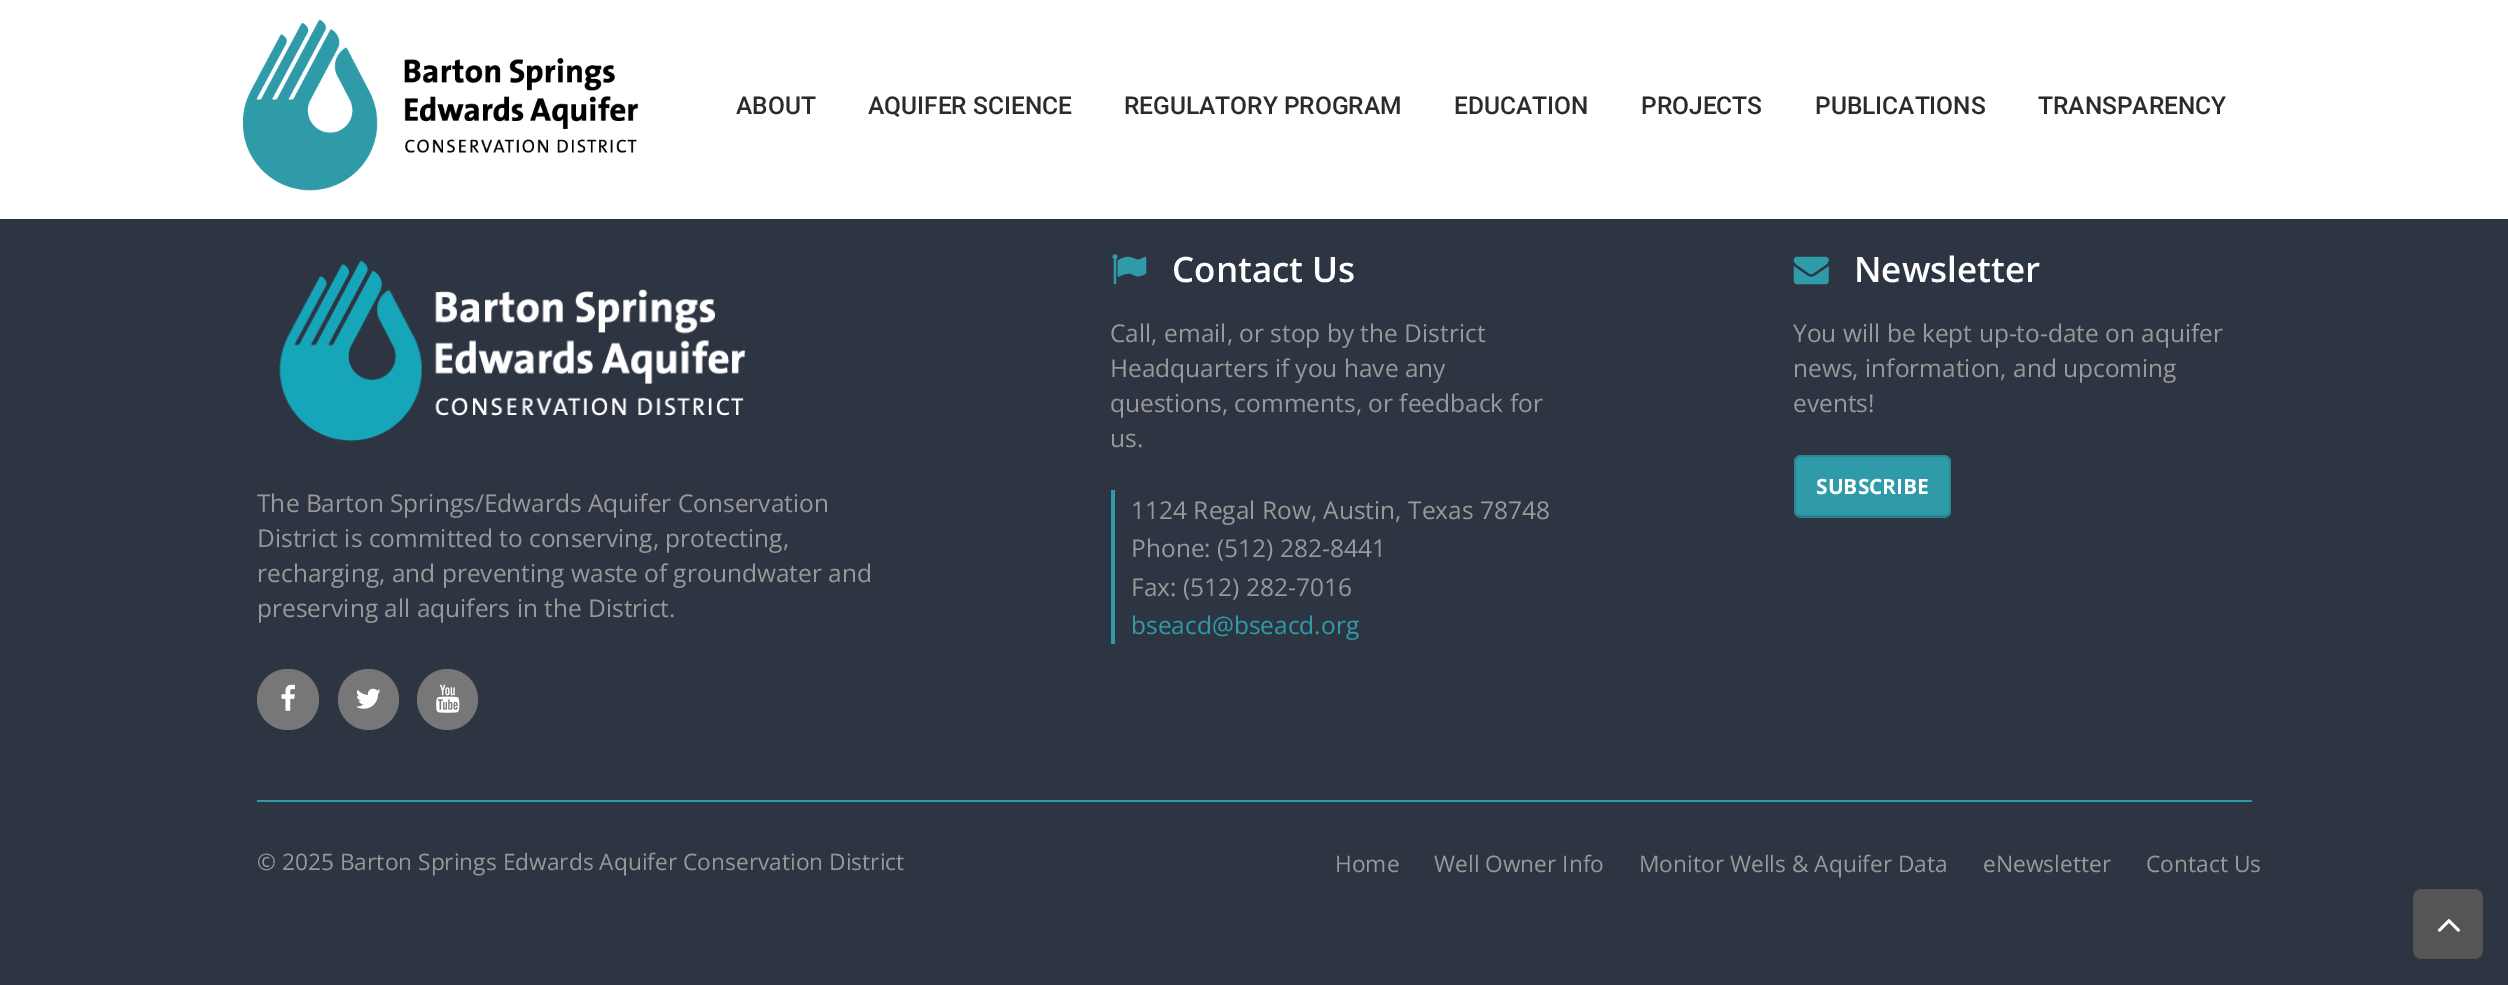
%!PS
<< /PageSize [2508 985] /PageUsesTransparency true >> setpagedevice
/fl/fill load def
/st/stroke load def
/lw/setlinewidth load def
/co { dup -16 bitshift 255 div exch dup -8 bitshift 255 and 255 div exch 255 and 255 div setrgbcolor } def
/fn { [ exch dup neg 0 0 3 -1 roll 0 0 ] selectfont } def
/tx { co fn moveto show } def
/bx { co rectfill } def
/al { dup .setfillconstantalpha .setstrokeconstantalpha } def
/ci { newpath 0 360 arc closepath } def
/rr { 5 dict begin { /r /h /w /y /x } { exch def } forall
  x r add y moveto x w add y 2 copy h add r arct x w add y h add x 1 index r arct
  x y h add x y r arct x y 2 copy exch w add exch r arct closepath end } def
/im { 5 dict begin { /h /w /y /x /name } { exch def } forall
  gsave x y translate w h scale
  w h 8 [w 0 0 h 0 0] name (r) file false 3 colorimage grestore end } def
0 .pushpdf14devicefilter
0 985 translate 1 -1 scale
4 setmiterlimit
0 0 2508 985 16#2D3543 bx
0 0 2508 219 16#FFFFFF bx
(media/1.raw) 242 19 397 172 im
(media/2.raw) 279 260 467 182 im
16#777777 co
257 669 62 61 30.5 rr fl
(media/3.raw) 281 684 14 27 im
368.5 699.5 30.5 ci fl
(media/4.raw) 356 688 25 21 im
447.5 699.5 30.5 ci fl
(media/5.raw) 436 684 24 29 im
(media/6.raw) 1112 254 35 31 im
1111 490 4 154 16#2F9BA9 bx
(media/7.raw) 1793 256 36 29 im
1794 455 157 63 7 rr fl
0.12 al
16#000000 co
2 lw
1795 456 155 61 6 rr st
1797 515 151 2 16#000000 bx
1 al
257 800 1995 2 16#2F9BA9 bx
16#555555 co
2413 889 70 70 9 rr fl
(media/8.raw) 2437 919 24 13 im
(ABOUT) 736 114 /Roboto-Medium 24.5 16#2D2A28 tx
(AQUIFER SCIENCE) 868 114 /Roboto-Medium 24.5 16#2D2A28 tx
(REGULATORY PROGRAM) 1124 114 /Roboto-Medium 24.5 16#2D2A28 tx
(EDUCATION) 1454 114 /Roboto-Medium 24.5 16#2D2A28 tx
(PROJECTS) 1641 114 /Roboto-Medium 24.5 16#2D2A28 tx
(PUBLICATIONS) 1815 114 /Roboto-Medium 24.5 16#2D2A28 tx
(TRANSPARENCY) 2038 114 /Roboto-Medium 24.5 16#2D2A28 tx
(The Barton Springs/Edwards Aquifer Conservation) 257 512 /OpenSans-Regular 24.5 16#999999 tx
(District is committed to conserving, protecting,) 257 547 /OpenSans-Regular 24.5 16#999999 tx
(recharging, and preventing waste of groundwater and) 257 582 /OpenSans-Regular 24.5 16#999999 tx
(preserving all aquifers in the District.) 257 617 /OpenSans-Regular 24.5 16#999999 tx
(Contact Us) 1172 282 /OpenSans-SemiBold 35 16#FFFFFF tx
(Call, email, or stop by the District) 1110 342 /OpenSans-Regular 24.5 16#999999 tx
(Headquarters if you have any) 1110 377 /OpenSans-Regular 24.5 16#999999 tx
(questions, comments, or feedback for) 1110 412 /OpenSans-Regular 24.5 16#999999 tx
(us.) 1110 447 /OpenSans-Regular 24.5 16#999999 tx
(1124 Regal Row, Austin, Texas 78748) 1131 519 /OpenSans-Regular 24.5 16#999999 tx
(Phone: \(512\) 282-8441) 1131 557 /OpenSans-Regular 24.5 16#999999 tx
(Fax: \(512\) 282-7016) 1131 596 /OpenSans-Regular 24.5 16#999999 tx
(bseacd@bseacd.org) 1131 634 /OpenSans-Regular 24.5 16#2F9BA9 tx
(Newsletter) 1854 282 /OpenSans-SemiBold 35 16#FFFFFF tx
(You will be kept up-to-date on aquifer) 1793 342 /OpenSans-Regular 24.5 16#999999 tx
(news, information, and upcoming) 1793 377 /OpenSans-Regular 24.5 16#999999 tx
(events!) 1793 412 /OpenSans-Regular 24.5 16#999999 tx
(SUBSCRIBE) 1816 494 /OpenSans-Bold 21 16#FFFFFF tx
(© 2025 Barton Springs Edwards Aquifer Conservation District) 257 870 /OpenSans-Regular 22.75 16#999999 tx
(Home) 1335 872 /OpenSans-Regular 22.75 16#999999 tx
(Well Owner Info) 1434 872 /OpenSans-Regular 22.75 16#999999 tx
(Monitor Wells & Aquifer Data) 1639 872 /OpenSans-Regular 22.75 16#999999 tx
(eNewsletter) 1983 872 /OpenSans-Regular 22.75 16#999999 tx
(Contact Us) 2146 872 /OpenSans-Regular 22.75 16#999999 tx
.poppdf14devicefilter showpage
